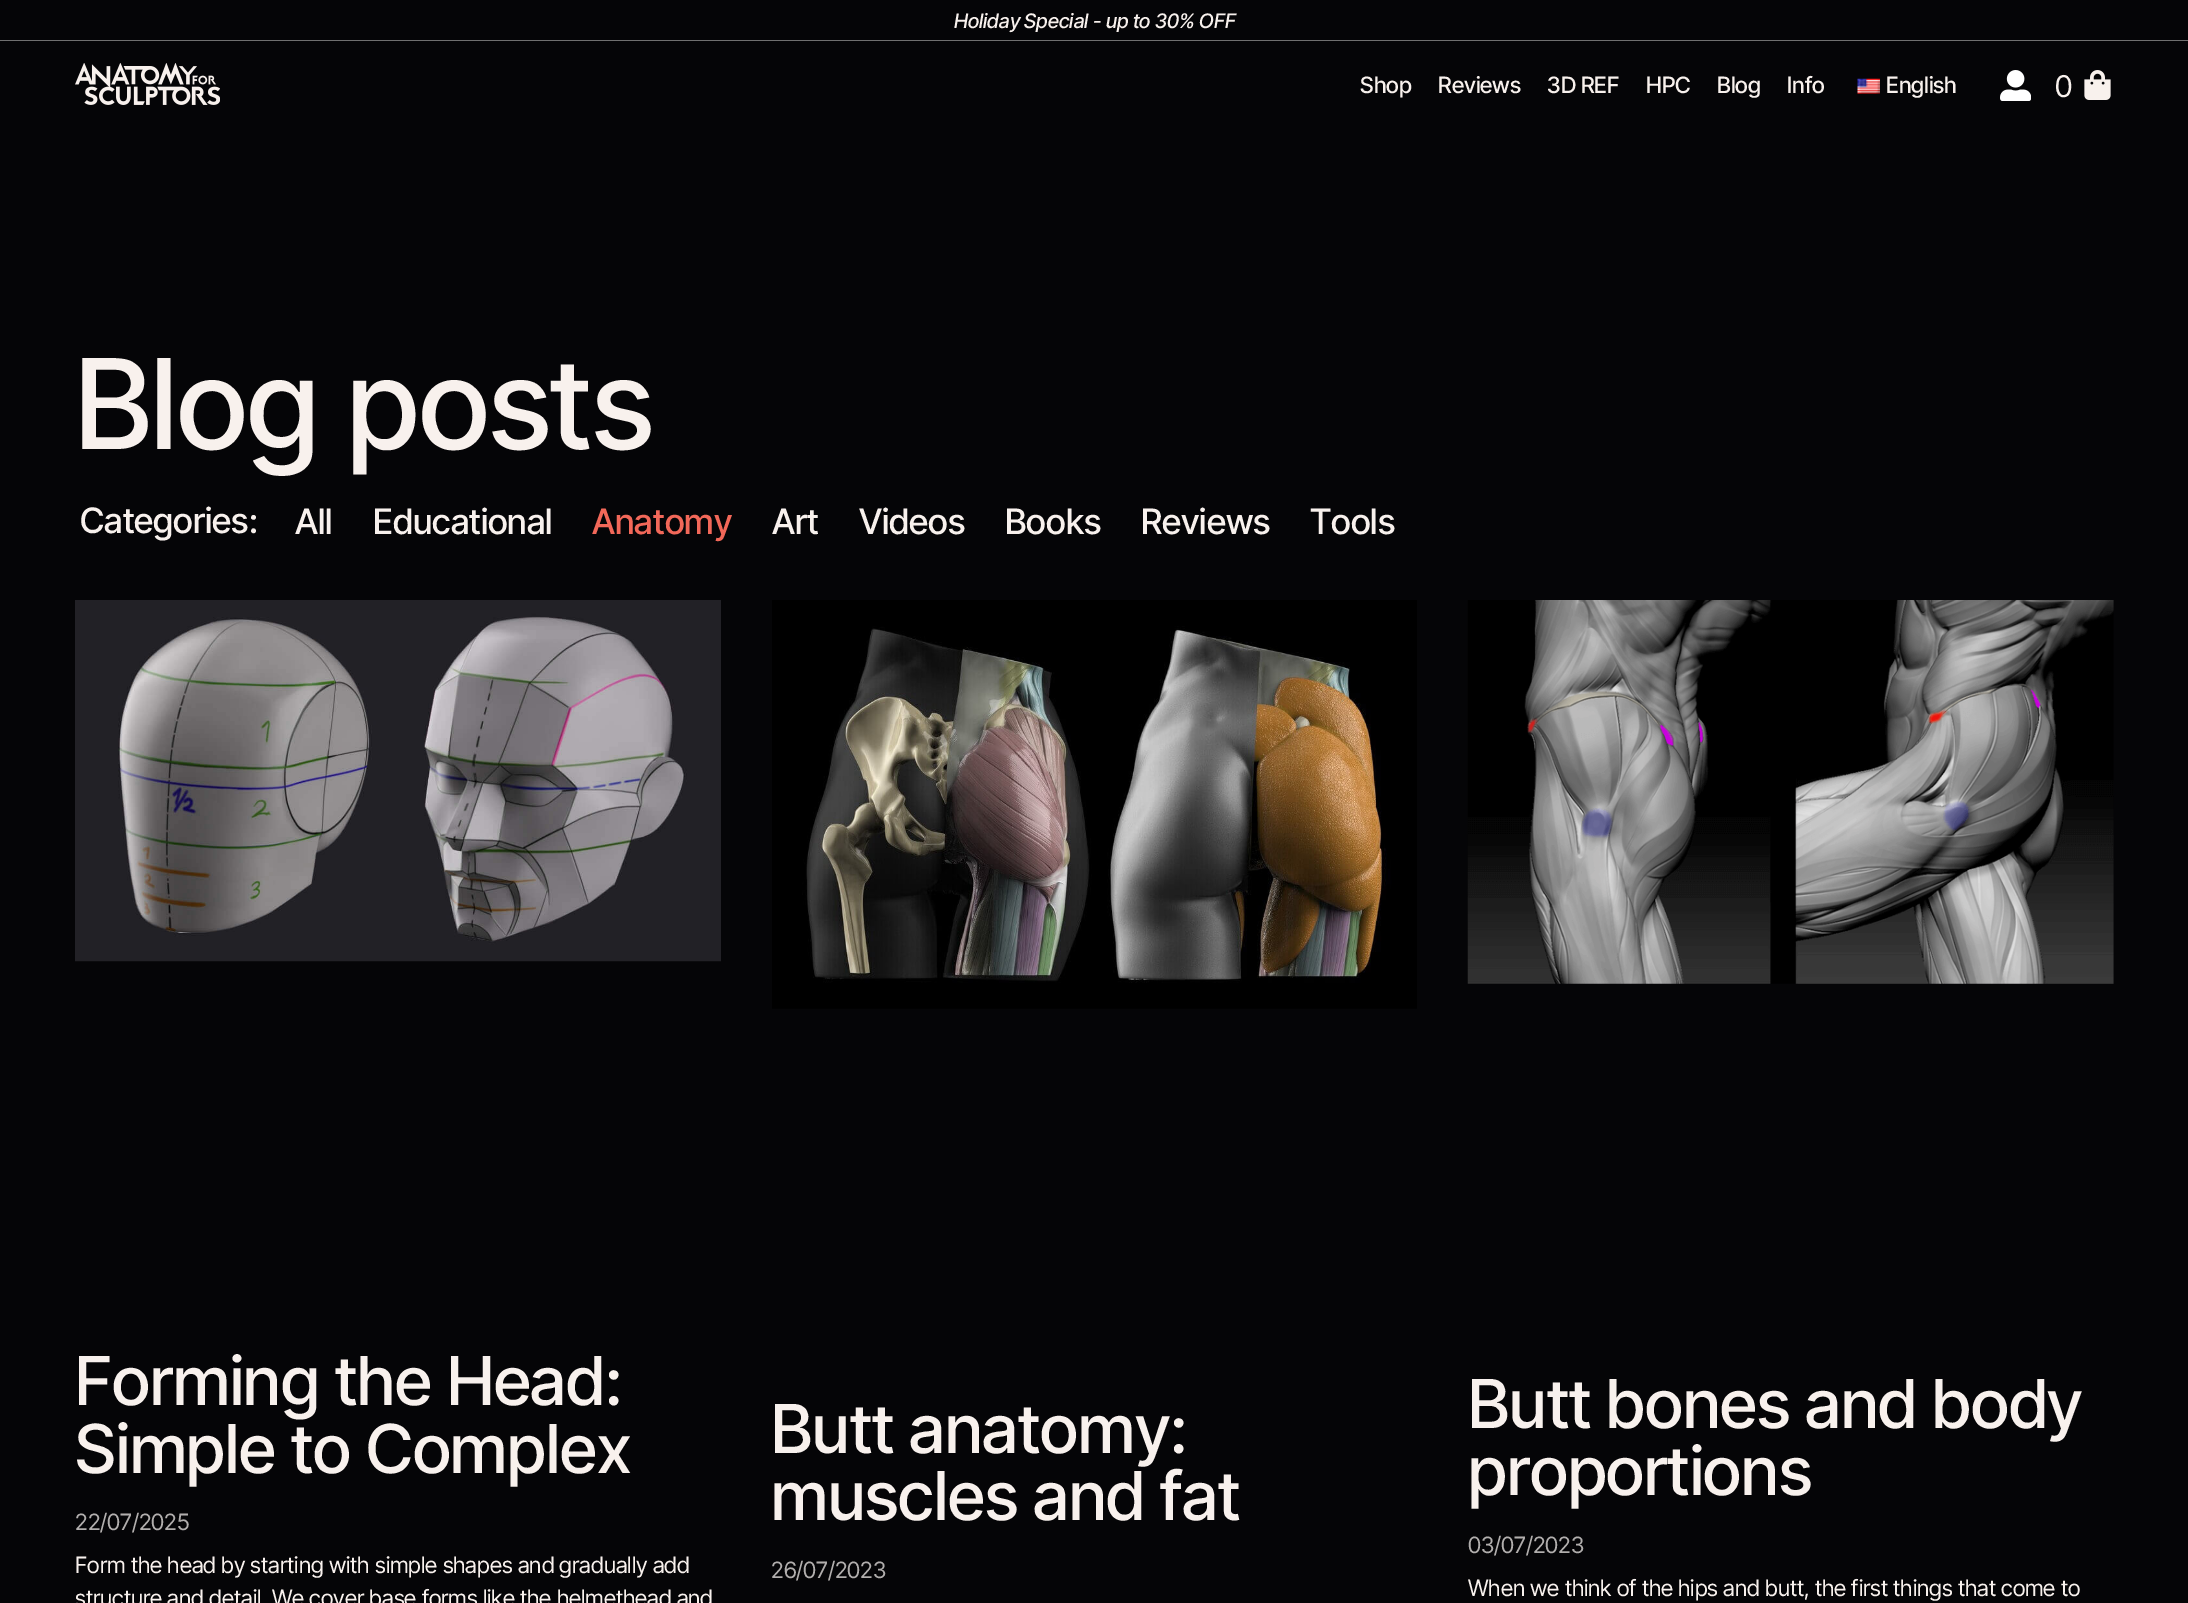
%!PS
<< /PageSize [2188 1603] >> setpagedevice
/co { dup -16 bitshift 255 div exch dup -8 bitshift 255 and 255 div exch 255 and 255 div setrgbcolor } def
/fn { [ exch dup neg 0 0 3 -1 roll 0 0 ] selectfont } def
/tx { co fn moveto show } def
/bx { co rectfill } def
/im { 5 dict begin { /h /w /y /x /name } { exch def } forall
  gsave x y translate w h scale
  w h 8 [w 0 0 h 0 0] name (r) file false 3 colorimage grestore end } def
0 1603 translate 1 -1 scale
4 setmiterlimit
0 0 2188 1603 16#050507 bx
0 40 2188 1 16#707070 bx
(media/1.raw) 75 63 145 42 im
(media/2.raw) 1857 78 23 16 im
(media/3.raw) 2000 70 31 31 im
(media/4.raw) 2084 70 27 30 im
(media/5.raw) 75 600 646 362 im
(media/6.raw) 772 600 645 409 im
(media/7.raw) 1467 600 647 384 im
(Holiday Special - up to 30% OFF) 954 28 /InterTight-MediumItalic 20 16#F8F1ED tx
(Shop) 1360 93 /InterTight-Medium 22.5 16#F8F1ED tx
(Reviews) 1438 93 /InterTight-Medium 22.5 16#F8F1ED tx
(3D REF) 1547 93 /InterTight-Medium 22.5 16#F8F1ED tx
(HPC) 1646 93 /InterTight-Medium 22.5 16#F8F1ED tx
(Blog) 1717 93 /InterTight-Medium 22.5 16#F8F1ED tx
(Info) 1787 93 /InterTight-Medium 22.5 16#F8F1ED tx
(English) 1886 93 /InterTight-Medium 22.5 16#F8F1ED tx
(0) 2055 97 /InterTight-Regular 30 16#F8F1ED tx
(Blog posts) 75 449 /InterTight-Medium 125 16#F8F1ED tx
(Categories:) 80 533 /InterTight-Medium 35 16#F8F1ED tx
(All) 295 534 /InterTight-Medium 35 16#F8F1ED tx
(Educational) 373 534 /InterTight-Medium 35 16#F8F1ED tx
(Anatomy) 592 534 /InterTight-Medium 35 16#F26859 tx
(Art) 772 534 /InterTight-Medium 35 16#F8F1ED tx
(Videos) 859 534 /InterTight-Medium 35 16#F8F1ED tx
(Books) 1005 534 /InterTight-Medium 35 16#F8F1ED tx
(Reviews) 1141 534 /InterTight-Medium 35 16#F8F1ED tx
(Tools) 1310 534 /InterTight-Medium 35 16#F8F1ED tx
(Forming the Head:) 75 1405 /InterTight-Medium 67.5 16#F8F1ED tx
(Simple to Complex) 75 1473 /InterTight-Medium 67.5 16#F8F1ED tx
(22/07/2025) 75 1530 /InterTight-Regular 22.5 16#B1AEAD tx
(Form the head by starting with simple shapes and gradually add) 75 1573 /InterTight-Regular 22.5 16#F8F1ED tx
(structure and detail. We cover base forms like the helmethead and) 75 1606 /InterTight-Regular 22.5 16#F8F1ED tx
(Butt anatomy:) 771 1453 /InterTight-Medium 67.5 16#F8F1ED tx
(muscles and fat) 771 1520 /InterTight-Medium 67.5 16#F8F1ED tx
(26/07/2023) 771 1578 /InterTight-Regular 22.5 16#B1AEAD tx
(Butt bones and body) 1468 1428 /InterTight-Medium 67.5 16#F8F1ED tx
(proportions) 1468 1495 /InterTight-Medium 67.5 16#F8F1ED tx
(03/07/2023) 1468 1553 /InterTight-Regular 22.5 16#B1AEAD tx
(When we think of the hips and butt, the first things that come to) 1468 1596 /InterTight-Regular 22.5 16#F8F1ED tx
showpage
